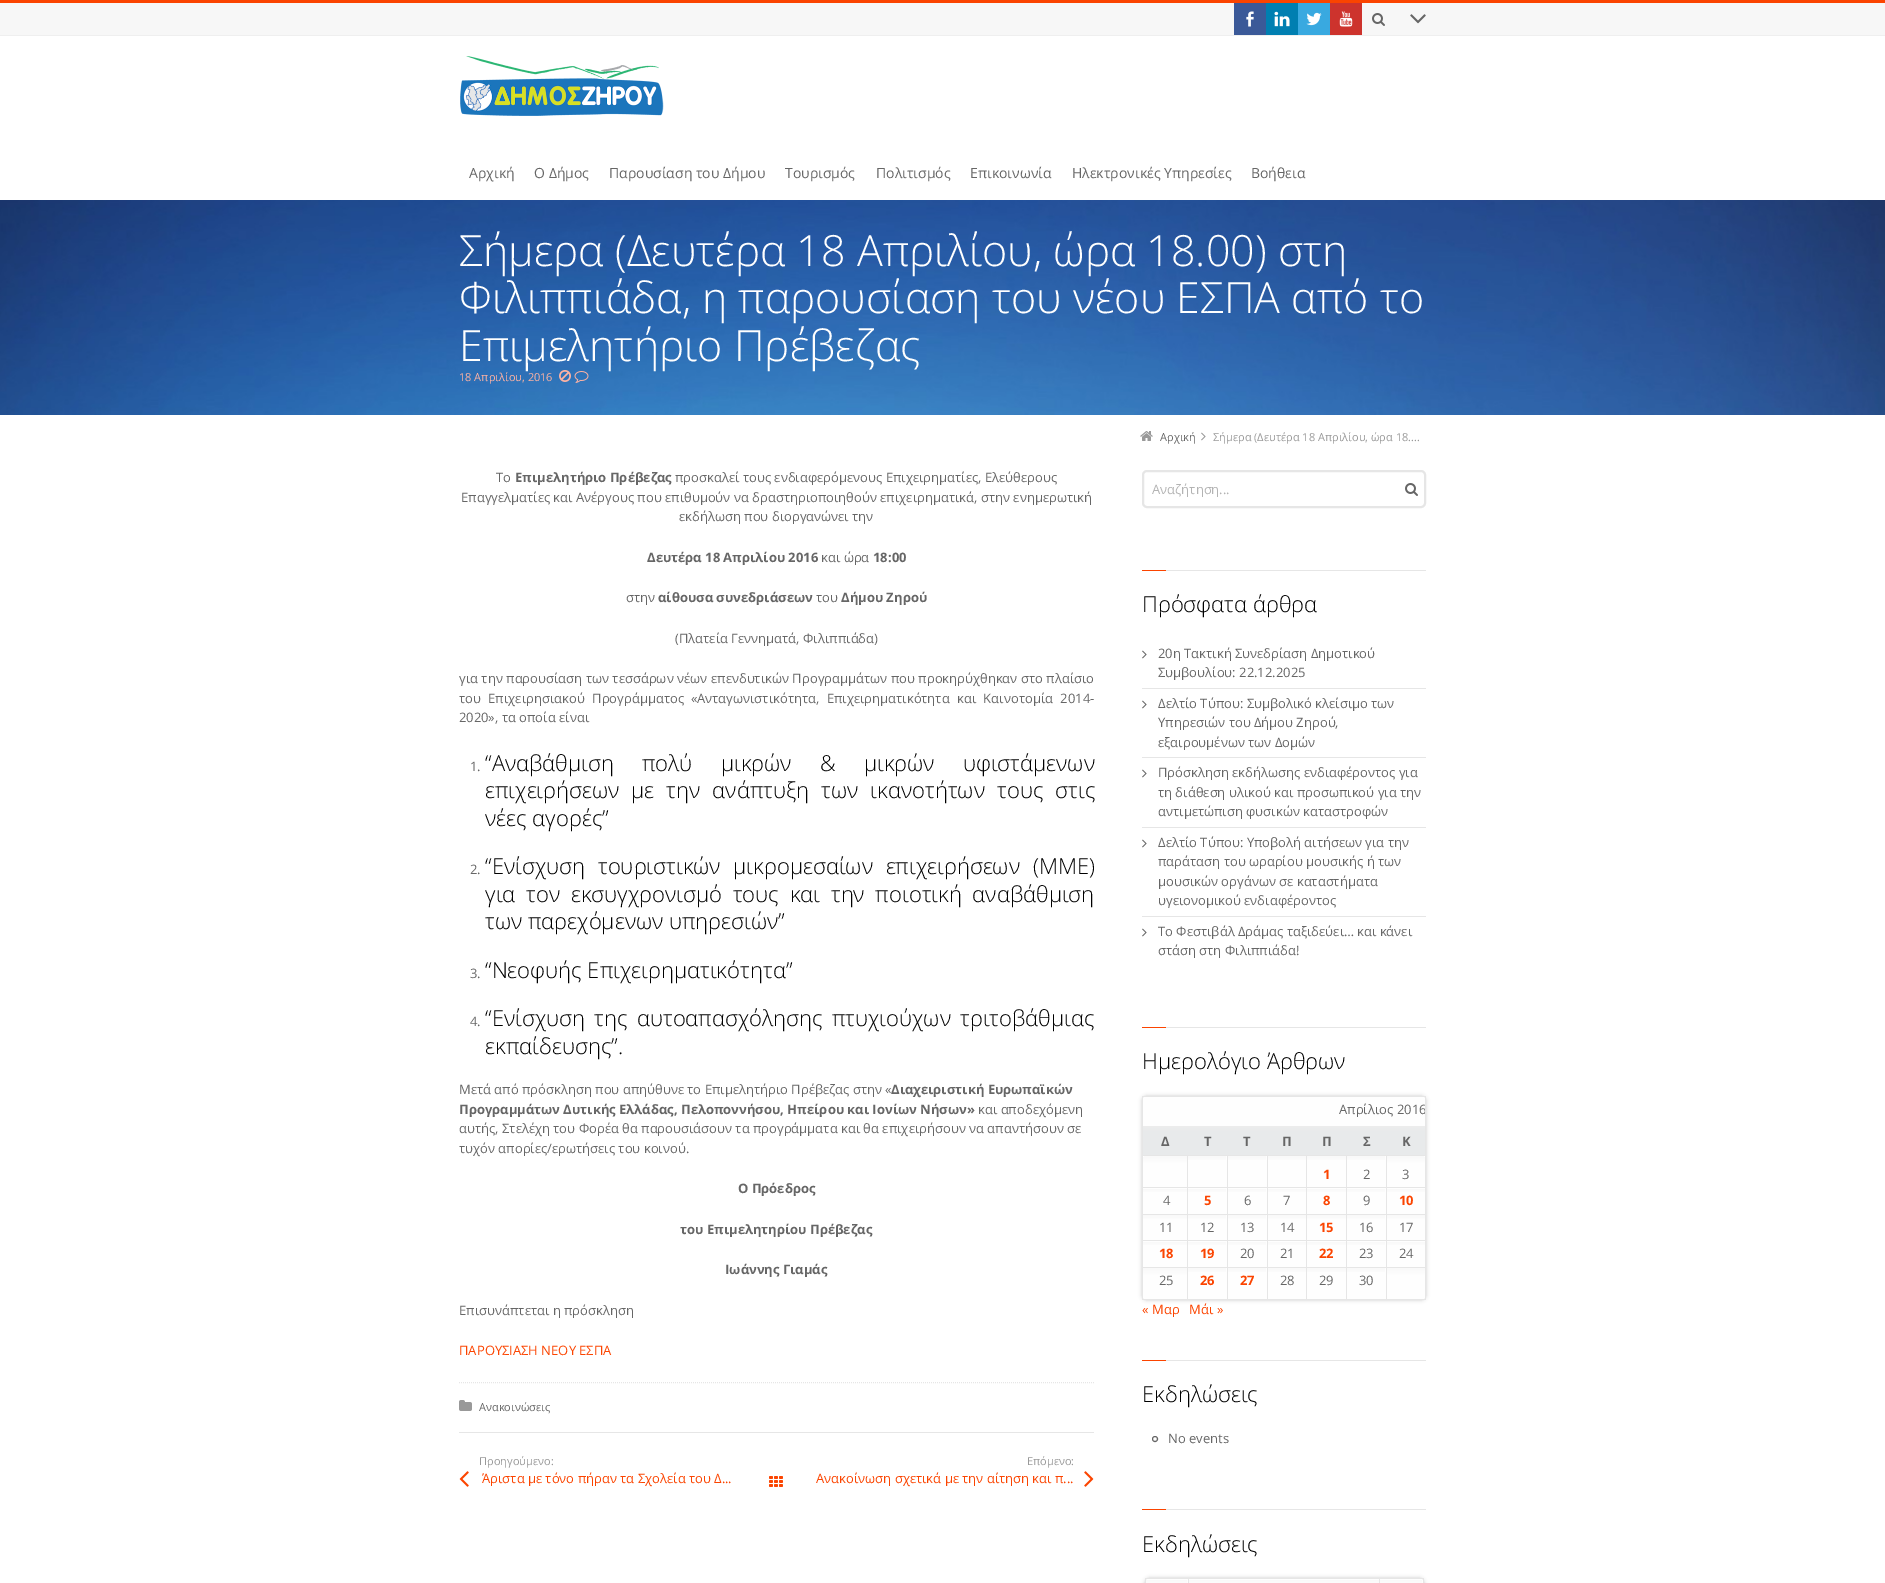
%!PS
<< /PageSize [1885 1583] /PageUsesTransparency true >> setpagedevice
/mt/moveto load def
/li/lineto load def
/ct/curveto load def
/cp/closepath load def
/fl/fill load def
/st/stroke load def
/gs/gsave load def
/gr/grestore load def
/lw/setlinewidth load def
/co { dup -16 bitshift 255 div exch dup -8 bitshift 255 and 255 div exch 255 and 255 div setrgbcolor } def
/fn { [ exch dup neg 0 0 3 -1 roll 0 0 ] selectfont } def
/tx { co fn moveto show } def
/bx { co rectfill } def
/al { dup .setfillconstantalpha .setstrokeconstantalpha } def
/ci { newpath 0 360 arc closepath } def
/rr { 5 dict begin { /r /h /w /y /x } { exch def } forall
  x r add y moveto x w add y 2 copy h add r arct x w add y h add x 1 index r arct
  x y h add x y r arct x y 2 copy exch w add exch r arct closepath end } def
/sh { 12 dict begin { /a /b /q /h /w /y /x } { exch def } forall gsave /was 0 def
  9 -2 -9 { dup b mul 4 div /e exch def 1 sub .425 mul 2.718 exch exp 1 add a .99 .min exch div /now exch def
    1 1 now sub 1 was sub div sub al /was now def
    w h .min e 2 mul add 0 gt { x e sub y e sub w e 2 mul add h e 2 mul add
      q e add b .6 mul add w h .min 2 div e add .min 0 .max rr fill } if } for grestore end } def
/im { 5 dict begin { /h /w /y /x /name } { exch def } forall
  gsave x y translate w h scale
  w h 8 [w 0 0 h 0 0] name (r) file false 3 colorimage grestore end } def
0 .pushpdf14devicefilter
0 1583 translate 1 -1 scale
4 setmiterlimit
0 0 1885 1583 16#FFFFFF bx
0 3 1885 32 16#F7F7F7 bx
0 0 1885 3 16#FB4400 bx
0 35 1885 1 16#EFEFEF bx
1234 3 32 32 16#3B5998 bx
(media/1.raw) 1246 11 8 16 im
1266 3 32 32 16#007FB1 bx
(media/2.raw) 1274 11 16 16 im
1298 3 32 32 16#39A9E0 bx
(media/3.raw) 1306 12 16 14 im
1330 3 32 32 16#CD332D bx
(media/4.raw) 1339 11 14 16 im
(media/5.raw) 1372 13 13 13 im
(media/6.raw) 1410 14 16 10 im
(media/7.raw) 460 56 204 60 im
(media/8.raw) 0 200 1885 215 im
(media/10.raw) 1140 431 13 10 im
(media/11.raw) 1201 432 5 9 im
16#E6E6E6 co
[1 1] 0 setdash
459 1382.5 mt 1094 1382.5 li st
(media/12.raw) 459 1400 13 11 im
459 1432 635 1 16#E6E6E6 bx
(media/13.raw) 459 1471 10 16 im
(media/14.raw) 769 1476 14 11 im
(media/15.raw) 1084 1471 10 16 im
2 lw
[] 0 setdash
1143 471 282 36 4 rr st
(media/16.raw) 1405 483 13 13 im
1166 570 260 1 16#E6E6E6 bx
1142 570 24 1 16#FB4400 bx
(media/17.raw) 1142 650 5 9 im
1142 688 284 1 16#E6E6E6 bx
(media/17.raw) 1142 700 5 9 im
1142 757 284 1 16#E6E6E6 bx
(media/17.raw) 1142 769 5 9 im
1142 827 284 1 16#E6E6E6 bx
(media/17.raw) 1142 839 5 9 im
1142 916 284 1 16#E6E6E6 bx
(media/17.raw) 1142 928 5 9 im
1166 1027 260 1 16#E6E6E6 bx
1142 1027 24 1 16#FB4400 bx
16#000000 co
1142 1096 284 204 5 2 .2 sh
16#FEFEFE co
1142 1096 284 204 5 rr fl
1142 1096 284 1 16#E6E6E6 bx
1425 1096 1 204 16#E6E6E6 bx
gs
1143 1097 282 202 4 rr clip newpath
gs 1142 1268 mt 1187 1268 li 1187 1300 li 1147 1300 li 1144 1300 1142 1298 1142 1295 ct cp clip newpath
<< /ShadingType 2 /ColorSpace /DeviceRGB /Coords [1142 1268 1142 1276] /Extend [true true] /Function << /FunctionType 2 /Domain [0 1] /C0 [.976 .976 .976] /C1 [.996 .996 .996] /N 1 >> >> shfill gr
gr
1142 1299 284 1 16#E6E6E6 bx
1142 1096 1 204 16#E6E6E6 bx
gs 1143 1126 mt 1188 1126 li 1188 1155 li 1143 1155 li cp clip newpath
<< /ShadingType 2 /ColorSpace /DeviceRGB /Coords [1142 1126 1142 1132] /Extend [true true] /Function << /FunctionType 2 /Domain [0 1] /C0 [.929 .929 .929] /C1 [.91 .918 .922] /N 1 >> >> shfill gr
gs 1188 1126 mt 1227 1126 li 1227 1155 li 1188 1155 li cp clip newpath
<< /ShadingType 2 /ColorSpace /DeviceRGB /Coords [1188 1126 1188 1132] /Extend [true true] /Function << /FunctionType 2 /Domain [0 1] /C0 [.929 .929 .929] /C1 [.91 .918 .922] /N 1 >> >> shfill gr
gs 1227 1126 mt 1267 1126 li 1267 1155 li 1227 1155 li cp clip newpath
<< /ShadingType 2 /ColorSpace /DeviceRGB /Coords [1227 1126 1227 1132] /Extend [true true] /Function << /FunctionType 2 /Domain [0 1] /C0 [.929 .929 .929] /C1 [.91 .918 .922] /N 1 >> >> shfill gr
gs 1267 1126 mt 1307 1126 li 1307 1155 li 1267 1155 li cp clip newpath
<< /ShadingType 2 /ColorSpace /DeviceRGB /Coords [1267 1126 1267 1132] /Extend [true true] /Function << /FunctionType 2 /Domain [0 1] /C0 [.929 .929 .929] /C1 [.91 .918 .922] /N 1 >> >> shfill gr
gs 1307 1126 mt 1347 1126 li 1347 1155 li 1307 1155 li cp clip newpath
<< /ShadingType 2 /ColorSpace /DeviceRGB /Coords [1307 1126 1307 1132] /Extend [true true] /Function << /FunctionType 2 /Domain [0 1] /C0 [.929 .929 .929] /C1 [.91 .918 .922] /N 1 >> >> shfill gr
gs 1347 1126 mt 1386 1126 li 1386 1155 li 1347 1155 li cp clip newpath
<< /ShadingType 2 /ColorSpace /DeviceRGB /Coords [1347 1126 1347 1132] /Extend [true true] /Function << /FunctionType 2 /Domain [0 1] /C0 [.929 .929 .929] /C1 [.91 .918 .922] /N 1 >> >> shfill gr
gs 1386 1126 mt 1425 1126 li 1425 1155 li 1386 1155 li cp clip newpath
<< /ShadingType 2 /ColorSpace /DeviceRGB /Coords [1386 1126 1386 1132] /Extend [true true] /Function << /FunctionType 2 /Domain [0 1] /C0 [.929 .929 .929] /C1 [.91 .918 .922] /N 1 >> >> shfill gr
gs 1147 1156 mt 1187 1156 li 1187 1188 li 1143 1188 li 1143 1158 li 1144 1157 1145 1156 1147 1156 ct cp clip newpath
<< /ShadingType 2 /ColorSpace /DeviceRGB /Coords [1142 1156 1142 1164] /Extend [true true] /Function << /FunctionType 2 /Domain [0 1] /C0 [.976 .976 .976] /C1 [.996 .996 .996] /N 1 >> >> shfill gr
1143 1155 282 1 16#E6E6E6 bx
gs 1386 1156 mt 1421 1156 li 1423 1156 1425 1158 1425 1160 ct 1425 1188 li 1386 1188 li cp clip newpath
<< /ShadingType 2 /ColorSpace /DeviceRGB /Coords [1386 1156 1386 1164] /Extend [true true] /Function << /FunctionType 2 /Domain [0 1] /C0 [.976 .976 .976] /C1 [.996 .996 .996] /N 1 >> >> shfill gr
1143 1187 282 1 16#E6E6E6 bx
1143 1214 282 1 16#E6E6E6 bx
1143 1240 282 1 16#E6E6E6 bx
1143 1267 282 1 16#E6E6E6 bx
1187 1267 1 32 16#E6E6E6 bx
1187 1240 1 28 16#E6E6E6 bx
1187 1214 1 27 16#E6E6E6 bx
1187 1187 1 28 16#E6E6E6 bx
1187 1155 1 33 16#E6E6E6 bx
gs 1188 1156 mt 1226 1156 li 1226 1160 li 1188 1160 li cp clip newpath
<< /ShadingType 2 /ColorSpace /DeviceRGB /Coords [1188 1156 1188 1164] /Extend [true true] /Function << /FunctionType 2 /Domain [0 1] /C0 [.976 .976 .976] /C1 [.996 .996 .996] /N 1 >> >> shfill gr
1227 1267 1 32 16#E6E6E6 bx
1227 1240 1 28 16#E6E6E6 bx
1227 1214 1 27 16#E6E6E6 bx
1227 1187 1 28 16#E6E6E6 bx
1227 1155 1 33 16#E6E6E6 bx
gs 1228 1156 mt 1266 1156 li 1266 1160 li 1228 1160 li cp clip newpath
<< /ShadingType 2 /ColorSpace /DeviceRGB /Coords [1227 1156 1227 1164] /Extend [true true] /Function << /FunctionType 2 /Domain [0 1] /C0 [.976 .976 .976] /C1 [.996 .996 .996] /N 1 >> >> shfill gr
1267 1267 1 32 16#E6E6E6 bx
1267 1240 1 28 16#E6E6E6 bx
1267 1214 1 27 16#E6E6E6 bx
1267 1187 1 28 16#E6E6E6 bx
1267 1155 1 33 16#E6E6E6 bx
gs 1268 1156 mt 1306 1156 li 1306 1160 li 1268 1160 li cp clip newpath
<< /ShadingType 2 /ColorSpace /DeviceRGB /Coords [1267 1156 1267 1164] /Extend [true true] /Function << /FunctionType 2 /Domain [0 1] /C0 [.976 .976 .976] /C1 [.996 .996 .996] /N 1 >> >> shfill gr
1306 1267 1 32 16#E6E6E6 bx
1306 1240 1 28 16#E6E6E6 bx
1306 1214 1 27 16#E6E6E6 bx
1306 1187 1 28 16#E6E6E6 bx
1306 1155 1 33 16#E6E6E6 bx
gs 1307 1156 mt 1346 1156 li 1346 1160 li 1307 1160 li cp clip newpath
<< /ShadingType 2 /ColorSpace /DeviceRGB /Coords [1307 1156 1307 1164] /Extend [true true] /Function << /FunctionType 2 /Domain [0 1] /C0 [.976 .976 .976] /C1 [.996 .996 .996] /N 1 >> >> shfill gr
1346 1267 1 32 16#E6E6E6 bx
1346 1240 1 28 16#E6E6E6 bx
1346 1214 1 27 16#E6E6E6 bx
1346 1187 1 28 16#E6E6E6 bx
1346 1155 1 33 16#E6E6E6 bx
gs 1347 1156 mt 1385 1156 li 1385 1160 li 1347 1160 li cp clip newpath
<< /ShadingType 2 /ColorSpace /DeviceRGB /Coords [1347 1156 1347 1164] /Extend [true true] /Function << /FunctionType 2 /Domain [0 1] /C0 [.976 .976 .976] /C1 [.996 .996 .996] /N 1 >> >> shfill gr
gs 1386 1268 mt 1386 1299 li 1421 1299 li 1423 1299 1425 1297 1425 1295 ct 1425 1268 li cp clip newpath
<< /ShadingType 2 /ColorSpace /DeviceRGB /Coords [1386 1268 1386 1276] /Extend [true true] /Function << /FunctionType 2 /Domain [0 1] /C0 [.976 .976 .976] /C1 [.996 .996 .996] /N 1 >> >> shfill gr
1386 1267 1 32 16#E6E6E6 bx
1386 1240 1 28 16#E6E6E6 bx
1386 1214 1 27 16#E6E6E6 bx
1386 1187 1 28 16#E6E6E6 bx
1386 1155 1 33 16#E6E6E6 bx
gs 1143 1189 mt 1187 1189 li 1187 1192 li 1143 1192 li cp clip newpath
<< /ShadingType 2 /ColorSpace /DeviceRGB /Coords [1142 1189 1142 1195] /Extend [true true] /Function << /FunctionType 2 /Domain [0 1] /C0 [.976 .976 .976] /C1 [.996 .996 .996] /N 1 >> >> shfill gr
gs 1188 1189 mt 1226 1189 li 1226 1192 li 1188 1192 li cp clip newpath
<< /ShadingType 2 /ColorSpace /DeviceRGB /Coords [1188 1189 1188 1195] /Extend [true true] /Function << /FunctionType 2 /Domain [0 1] /C0 [.976 .976 .976] /C1 [.996 .996 .996] /N 1 >> >> shfill gr
gs 1228 1189 mt 1266 1189 li 1266 1192 li 1228 1192 li cp clip newpath
<< /ShadingType 2 /ColorSpace /DeviceRGB /Coords [1227 1189 1227 1195] /Extend [true true] /Function << /FunctionType 2 /Domain [0 1] /C0 [.976 .976 .976] /C1 [.996 .996 .996] /N 1 >> >> shfill gr
gs 1268 1189 mt 1306 1189 li 1306 1192 li 1268 1192 li cp clip newpath
<< /ShadingType 2 /ColorSpace /DeviceRGB /Coords [1267 1189 1267 1195] /Extend [true true] /Function << /FunctionType 2 /Domain [0 1] /C0 [.976 .976 .976] /C1 [.996 .996 .996] /N 1 >> >> shfill gr
gs 1307 1189 mt 1346 1189 li 1346 1192 li 1307 1192 li cp clip newpath
<< /ShadingType 2 /ColorSpace /DeviceRGB /Coords [1307 1189 1307 1195] /Extend [true true] /Function << /FunctionType 2 /Domain [0 1] /C0 [.976 .976 .976] /C1 [.996 .996 .996] /N 1 >> >> shfill gr
gs 1347 1189 mt 1385 1189 li 1385 1192 li 1347 1192 li cp clip newpath
<< /ShadingType 2 /ColorSpace /DeviceRGB /Coords [1347 1189 1347 1195] /Extend [true true] /Function << /FunctionType 2 /Domain [0 1] /C0 [.976 .976 .976] /C1 [.996 .996 .996] /N 1 >> >> shfill gr
gs 1387 1189 mt 1425 1189 li 1425 1192 li 1387 1192 li cp clip newpath
<< /ShadingType 2 /ColorSpace /DeviceRGB /Coords [1386 1189 1386 1195] /Extend [true true] /Function << /FunctionType 2 /Domain [0 1] /C0 [.976 .976 .976] /C1 [.996 .996 .996] /N 1 >> >> shfill gr
gs 1143 1215 mt 1187 1215 li 1187 1219 li 1143 1219 li cp clip newpath
<< /ShadingType 2 /ColorSpace /DeviceRGB /Coords [1142 1215 1142 1222] /Extend [true true] /Function << /FunctionType 2 /Domain [0 1] /C0 [.976 .976 .976] /C1 [.996 .996 .996] /N 1 >> >> shfill gr
gs 1188 1215 mt 1226 1215 li 1226 1219 li 1188 1219 li cp clip newpath
<< /ShadingType 2 /ColorSpace /DeviceRGB /Coords [1188 1215 1188 1222] /Extend [true true] /Function << /FunctionType 2 /Domain [0 1] /C0 [.976 .976 .976] /C1 [.996 .996 .996] /N 1 >> >> shfill gr
gs 1228 1215 mt 1266 1215 li 1266 1219 li 1228 1219 li cp clip newpath
<< /ShadingType 2 /ColorSpace /DeviceRGB /Coords [1227 1215 1227 1222] /Extend [true true] /Function << /FunctionType 2 /Domain [0 1] /C0 [.976 .976 .976] /C1 [.996 .996 .996] /N 1 >> >> shfill gr
gs 1268 1215 mt 1306 1215 li 1306 1219 li 1268 1219 li cp clip newpath
<< /ShadingType 2 /ColorSpace /DeviceRGB /Coords [1267 1215 1267 1222] /Extend [true true] /Function << /FunctionType 2 /Domain [0 1] /C0 [.976 .976 .976] /C1 [.996 .996 .996] /N 1 >> >> shfill gr
gs 1307 1215 mt 1346 1215 li 1346 1219 li 1307 1219 li cp clip newpath
<< /ShadingType 2 /ColorSpace /DeviceRGB /Coords [1307 1215 1307 1222] /Extend [true true] /Function << /FunctionType 2 /Domain [0 1] /C0 [.976 .976 .976] /C1 [.996 .996 .996] /N 1 >> >> shfill gr
gs 1347 1215 mt 1385 1215 li 1385 1219 li 1347 1219 li cp clip newpath
<< /ShadingType 2 /ColorSpace /DeviceRGB /Coords [1347 1215 1347 1222] /Extend [true true] /Function << /FunctionType 2 /Domain [0 1] /C0 [.976 .976 .976] /C1 [.996 .996 .996] /N 1 >> >> shfill gr
gs 1387 1215 mt 1425 1215 li 1425 1219 li 1387 1219 li cp clip newpath
<< /ShadingType 2 /ColorSpace /DeviceRGB /Coords [1386 1215 1386 1222] /Extend [true true] /Function << /FunctionType 2 /Domain [0 1] /C0 [.976 .976 .976] /C1 [.996 .996 .996] /N 1 >> >> shfill gr
gs 1143 1242 mt 1187 1242 li 1187 1245 li 1143 1245 li cp clip newpath
<< /ShadingType 2 /ColorSpace /DeviceRGB /Coords [1142 1242 1142 1248] /Extend [true true] /Function << /FunctionType 2 /Domain [0 1] /C0 [.976 .976 .976] /C1 [.996 .996 .996] /N 1 >> >> shfill gr
gs 1188 1242 mt 1226 1242 li 1226 1245 li 1188 1245 li cp clip newpath
<< /ShadingType 2 /ColorSpace /DeviceRGB /Coords [1188 1242 1188 1248] /Extend [true true] /Function << /FunctionType 2 /Domain [0 1] /C0 [.976 .976 .976] /C1 [.996 .996 .996] /N 1 >> >> shfill gr
gs 1228 1242 mt 1266 1242 li 1266 1245 li 1228 1245 li cp clip newpath
<< /ShadingType 2 /ColorSpace /DeviceRGB /Coords [1227 1242 1227 1248] /Extend [true true] /Function << /FunctionType 2 /Domain [0 1] /C0 [.976 .976 .976] /C1 [.996 .996 .996] /N 1 >> >> shfill gr
gs 1268 1242 mt 1306 1242 li 1306 1245 li 1268 1245 li cp clip newpath
<< /ShadingType 2 /ColorSpace /DeviceRGB /Coords [1267 1242 1267 1248] /Extend [true true] /Function << /FunctionType 2 /Domain [0 1] /C0 [.976 .976 .976] /C1 [.996 .996 .996] /N 1 >> >> shfill gr
gs 1307 1242 mt 1346 1242 li 1346 1245 li 1307 1245 li cp clip newpath
<< /ShadingType 2 /ColorSpace /DeviceRGB /Coords [1307 1242 1307 1248] /Extend [true true] /Function << /FunctionType 2 /Domain [0 1] /C0 [.976 .976 .976] /C1 [.996 .996 .996] /N 1 >> >> shfill gr
gs 1347 1242 mt 1385 1242 li 1385 1245 li 1347 1245 li cp clip newpath
<< /ShadingType 2 /ColorSpace /DeviceRGB /Coords [1347 1242 1347 1248] /Extend [true true] /Function << /FunctionType 2 /Domain [0 1] /C0 [.976 .976 .976] /C1 [.996 .996 .996] /N 1 >> >> shfill gr
gs 1387 1242 mt 1425 1242 li 1425 1245 li 1387 1245 li cp clip newpath
<< /ShadingType 2 /ColorSpace /DeviceRGB /Coords [1386 1242 1386 1248] /Extend [true true] /Function << /FunctionType 2 /Domain [0 1] /C0 [.976 .976 .976] /C1 [.996 .996 .996] /N 1 >> >> shfill gr
gs 1188 1268 mt 1226 1268 li 1226 1272 li 1188 1272 li cp clip newpath
<< /ShadingType 2 /ColorSpace /DeviceRGB /Coords [1188 1268 1188 1276] /Extend [true true] /Function << /FunctionType 2 /Domain [0 1] /C0 [.976 .976 .976] /C1 [.996 .996 .996] /N 1 >> >> shfill gr
gs 1228 1268 mt 1266 1268 li 1266 1272 li 1228 1272 li cp clip newpath
<< /ShadingType 2 /ColorSpace /DeviceRGB /Coords [1227 1268 1227 1276] /Extend [true true] /Function << /FunctionType 2 /Domain [0 1] /C0 [.976 .976 .976] /C1 [.996 .996 .996] /N 1 >> >> shfill gr
gs 1268 1268 mt 1306 1268 li 1306 1272 li 1268 1272 li cp clip newpath
<< /ShadingType 2 /ColorSpace /DeviceRGB /Coords [1267 1268 1267 1276] /Extend [true true] /Function << /FunctionType 2 /Domain [0 1] /C0 [.976 .976 .976] /C1 [.996 .996 .996] /N 1 >> >> shfill gr
gs 1307 1268 mt 1346 1268 li 1346 1272 li 1307 1272 li cp clip newpath
<< /ShadingType 2 /ColorSpace /DeviceRGB /Coords [1307 1268 1307 1276] /Extend [true true] /Function << /FunctionType 2 /Domain [0 1] /C0 [.976 .976 .976] /C1 [.996 .996 .996] /N 1 >> >> shfill gr
gs 1347 1268 mt 1385 1268 li 1385 1272 li 1347 1272 li cp clip newpath
<< /ShadingType 2 /ColorSpace /DeviceRGB /Coords [1347 1268 1347 1276] /Extend [true true] /Function << /FunctionType 2 /Domain [0 1] /C0 [.976 .976 .976] /C1 [.996 .996 .996] /N 1 >> >> shfill gr
1166 1360 260 1 16#E6E6E6 bx
1142 1360 24 1 16#FB4400 bx
16#666666 co
1 lw
1155 1439 2.5 ci st
1166 1509 260 1 16#E6E6E6 bx
1142 1509 24 1 16#FB4400 bx
16#000000 co
1145 1578 279 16 5 2 .2 sh
16#FEFEFE co
1145 1578 279 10 5 rr fl
1145 1578 279 1 16#E6E6E6 bx
1423 1578 1 5 16#E6E6E6 bx
1145 1578 1 5 16#E6E6E6 bx
gs
1146 1579 277 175 4 rr clip newpath
gs 1146 1580 mt 1187 1580 li 1187 1583 li 1146 1583 li cp clip newpath
<< /ShadingType 2 /ColorSpace /DeviceRGB /Coords [1145 1580 1145 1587] /Extend [true true] /Function << /FunctionType 2 /Domain [0 1] /C0 [.976 .976 .976] /C1 [.996 .996 .996] /N 1 >> >> shfill gr
gr
gs 1188 1580 mt 1379 1580 li 1379 1583 li 1188 1583 li cp clip newpath
<< /ShadingType 2 /ColorSpace /DeviceRGB /Coords [1188 1580 1188 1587] /Extend [true true] /Function << /FunctionType 2 /Domain [0 1] /C0 [.976 .976 .976] /C1 [.996 .996 .996] /N 1 >> >> shfill gr
1188 1579 1 4 16#E6E6E6 bx
1379 1579 1 4 16#E6E6E6 bx
gs 1380 1580 mt 1422 1580 li 1422 1583 li 1380 1583 li cp clip newpath
<< /ShadingType 2 /ColorSpace /DeviceRGB /Coords [1380 1580 1380 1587] /Extend [true true] /Function << /FunctionType 2 /Domain [0 1] /C0 [.976 .976 .976] /C1 [.996 .996 .996] /N 1 >> >> shfill gr
(Αρχική) 469 178 /OpenSans-Regular 14 16#666666 tx
(Ο Δήμος) 534 178 /OpenSans-Regular 14 16#666666 tx
(Παρουσίαση του Δήμου) 609 178 /OpenSans-Regular 14 16#666666 tx
(Τουρισμός) 785 178 /OpenSans-Regular 14 16#666666 tx
(Πολιτισμός) 876 178 /OpenSans-Regular 14 16#666666 tx
(Επικοινωνία) 970 178 /OpenSans-Regular 14 16#666666 tx
(Ηλεκτρονικές Υπηρεσίες) 1072 178 /OpenSans-Regular 14 16#666666 tx
(Βοήθεια) 1251 178 /OpenSans-Regular 14 16#666666 tx
(Σήμερα \(Δευτέρα 18 Απριλίου, ώρα 18.00\) στη) 459 266 /OpenSans-Light 43 16#FFFFFF tx
(Φιλιππιάδα, η παρουσίαση του νέου ΕΣΠΑ από το) 459 313 /OpenSans-Light 43 16#FFFFFF tx
(Επιμελητήριο Πρέβεζας) 459 361 /OpenSans-Light 43 16#FFFFFF tx
(18 Απριλίου, 2016) 459 381 /OpenSans-Regular 11 16#FDB2A3 tx
(media/9.raw) 559 370 30 13 im
(Αρχική) 1160 441 /OpenSans-Regular 11 16#666666 tx
(Σήμερα \(Δευτέρα 18 Απριλίου, ώρα 18....) 1213 441 /OpenSans-Regular 11 16#999999 tx
(Το) 496 482 /OpenSans-Regular 13 16#666666 tx
(Επιμελητήριο Πρέβεζας) 515 482 /OpenSans-Bold 13 16#666666 tx
(προσκαλεί τους ενδιαφερόμενους Επιχειρηματίες, Ελεύθερους) 675 482 /OpenSans-Regular 13 16#666666 tx
(Επαγγελματίες και Ανέργους που επιθυμούν να δραστηριοποιηθούν επιχειρηματικά, στην ενημερωτική) 461 502 /OpenSans-Regular 13 16#666666 tx
(εκδήλωση που διοργανώνει την) 679 521 /OpenSans-Regular 13 16#666666 tx
(Δευτέρα 18 Απριλίου 2016) 647 562 /OpenSans-Bold 13 16#666666 tx
(και ώρα) 821 562 /OpenSans-Regular 13 16#666666 tx
(18:00) 873 562 /OpenSans-Bold 13 16#666666 tx
(στην) 626 602 /OpenSans-Regular 13 16#666666 tx
(αίθουσα συνεδριάσεων) 658 602 /OpenSans-Bold 13 16#666666 tx
(του) 816 602 /OpenSans-Regular 13 16#666666 tx
(Δήμου Ζηρού) 841 602 /OpenSans-Bold 13 16#666666 tx
(\(Πλατεία Γεννηματά, Φιλιππιάδα\)) 675 643 /OpenSans-Regular 13 16#666666 tx
459 683 mt .1 0 32 (για την παρουσίαση των τεσσάρων νέων επενδυτικών Προγραμμάτων που προκηρύχθηκαν στο πλαίσιο) widthshow
459 703 mt 4 0 32 (του Επιχειρησιακού Προγράμματος) widthshow
(«) 691 703 /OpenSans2-Regular 13 16#666666 tx
/OpenSans-Regular 13 fn
697 703 mt 4 0 32 (Ανταγωνιστικότητα, Επιχειρηματικότητα και Καινοτομία 2014-) widthshow
(2020) 459 722 /OpenSans-Regular 13 16#666666 tx
(») 488 722 /OpenSans2-Regular 13 16#666666 tx
(, τα οποία είναι) 495 722 /OpenSans-Regular 13 16#666666 tx
(1.) 470 771 /OpenSans-Regular 13 16#666666 tx
/OpenSans-Light 22 fn
16#000000 co
485 771 mt 22.5 0 32 (“Αναβάθμιση πολύ μικρών & μικρών υφιστάμενων) widthshow
485 798 mt 6.25 0 32 (επιχειρήσεων με την ανάπτυξη των ικανοτήτων τους στις) widthshow
(νέες αγορές”) 485 826 /OpenSans-Light 22 16#000000 tx
(2.) 470 874 /OpenSans-Regular 13 16#666666 tx
/OpenSans-Light 22 fn
16#000000 co
485 874 mt 7 0 32 (“Ενίσχυση τουριστικών μικρομεσαίων επιχειρήσεων \(ΜΜΕ\)) widthshow
485 902 mt 5 0 32 (για τον εκσυγχρονισμό τους και την ποιοτική αναβάθμιση) widthshow
(των παρεχόμενων υπηρεσιών”) 485 929 /OpenSans-Light 22 16#000000 tx
(3.) 470 978 /OpenSans-Regular 13 16#666666 tx
(“Νεοφυής Επιχειρηματικότητα”) 485 978 /OpenSans-Light 22 16#000000 tx
(4.) 470 1026 /OpenSans-Regular 13 16#666666 tx
/OpenSans-Light 22 fn
16#000000 co
485 1026 mt 3.5 0 32 (“Ενίσχυση της αυτοαπασχόλησης πτυχιούχων τριτοβάθμιας) widthshow
(εκπαίδευσης”.) 485 1054 /OpenSans-Light 22 16#000000 tx
(Μετά από πρόσκληση που απηύθυνε το Επιμελητήριο Πρέβεζας στην) 459 1094 /OpenSans-Regular 13 16#666666 tx
(«) 885 1094 /OpenSans2-Regular 13 16#666666 tx
(Διαχειριστική Ευρωπαϊκών) 891 1094 /OpenSans-Bold 13 16#666666 tx
(Προγραμμάτων Δυτικής Ελλάδας, Πελοποννήσου, Ηπείρου και Ιονίων Νήσων») 459 1114 /OpenSans-Bold 13 16#666666 tx
(και αποδεχόμενη) 978 1114 /OpenSans-Regular 13 16#666666 tx
(αυτής, Στελέχη του Φορέα θα παρουσιάσουν τα προγράμματα και θα επιχειρήσουν να απαντήσουν σε) 459 1133 /OpenSans-Regular 13 16#666666 tx
(τυχόν απορίες/ερωτήσεις του κοινού.) 459 1153 /OpenSans-Regular 13 16#666666 tx
(Ο Πρόεδρος) 738 1193 /OpenSans-Bold 13 16#666666 tx
(του Επιμελητηρίου Πρέβεζας) 680 1234 /OpenSans-Bold 13 16#666666 tx
(Ιωάννης Γιαμάς) 725 1274 /OpenSans-Bold 13 16#666666 tx
(Επισυνάπτεται η πρόσκληση) 459 1315 /OpenSans-Regular 13 16#666666 tx
(ΠΑΡΟΥΣΙΑΣΗ ΝΕΟΥ ΕΣΠΑ) 459 1355 /OpenSans-Regular 13 16#FB4400 tx
(Ανακοινώσεις) 479 1411 /OpenSans-Regular 11 16#666666 tx
(Προηγούμενο:) 479 1465 /OpenSans-Regular 11 16#999999 tx
(Άριστα με τόνο πήραν τα Σχολεία του Δ...) 482 1483 /OpenSans-Regular 13 16#FB4400 tx
(Επόμενο:) 1027 1465 /OpenSans-Regular 11 16#999999 tx
(Ανακοίνωση σχετικά με την αίτηση και π...) 816 1483 /OpenSans-Regular 13 16#FB4400 tx
(Αναζήτηση...) 1152 494 /OpenSans-Regular 13 16#B3B3B3 tx
(Πρόσφατα άρθρα) 1142 612 /OpenSans-Light 22 16#000000 tx
(20η Τακτική Συνεδρίαση Δημοτικού) 1158 658 /OpenSans-Regular 13 16#666666 tx
(Συμβουλίου: 22.12.2025) 1158 677 /OpenSans-Regular 13 16#666666 tx
(Δελτίο Τύπου: Συμβολικό κλείσιμο των) 1158 708 /OpenSans-Regular 13 16#666666 tx
(Υπηρεσιών του Δήμου Ζηρού,) 1158 727 /OpenSans-Regular 13 16#666666 tx
(εξαιρουμένων των Δομών) 1158 747 /OpenSans-Regular 13 16#666666 tx
(Πρόσκληση εκδήλωσης ενδιαφέροντος για) 1158 777 /OpenSans-Regular 13 16#666666 tx
(τη διάθεση υλικού και προσωπικού για την) 1158 797 /OpenSans-Regular 13 16#666666 tx
(αντιμετώπιση φυσικών καταστροφών) 1158 816 /OpenSans-Regular 13 16#666666 tx
(Δελτίο Τύπου: Υποβολή αιτήσεων για την) 1158 847 /OpenSans-Regular 13 16#666666 tx
(παράταση του ωραρίου μουσικής ή των) 1158 866 /OpenSans-Regular 13 16#666666 tx
(μουσικών οργάνων σε καταστήματα) 1158 886 /OpenSans-Regular 13 16#666666 tx
(υγειονομικού ενδιαφέροντος) 1158 905 /OpenSans-Regular 13 16#666666 tx
(Το Φεστιβάλ Δράμας ταξιδεύει) 1158 936 /OpenSans-Regular 13 16#666666 tx
(…) 1344 936 /OpenSans2-Regular 13 16#666666 tx
(και κάνει) 1357 936 /OpenSans-Regular 13 16#666666 tx
(στάση στη Φιλιππιάδα!) 1158 955 /OpenSans-Regular 13 16#666666 tx
(Ημερολόγιο Άρθρων) 1142 1069 /OpenSans-Light 22 16#000000 tx
gs
1143 1097 282 202 4 rr clip newpath
(Απρίλιος 2016) 1339 1114 /OpenSans-Regular 13 16#666666 tx
gr
(Δ) 1161 1146 /OpenSans-Bold 13 16#666666 tx
(Τ) 1204 1146 /OpenSans-Bold 13 16#666666 tx
(Τ) 1243 1146 /OpenSans-Bold 13 16#666666 tx
(Π) 1282 1146 /OpenSans-Bold 13 16#666666 tx
(Π) 1322 1146 /OpenSans-Bold 13 16#666666 tx
(Σ) 1363 1146 /OpenSans-Bold 13 16#666666 tx
(Κ) 1402 1146 /OpenSans-Bold 13 16#666666 tx
(1) 1323 1179 /OpenSans-Bold 13 16#FB4400 tx
(2) 1363 1179 /OpenSans-Regular 13 16#666666 tx
(3) 1402 1179 /OpenSans-Regular 13 16#666666 tx
(4) 1163 1205 /OpenSans-Regular 13 16#666666 tx
(5) 1204 1205 /OpenSans-Bold 13 16#FB4400 tx
(6) 1244 1205 /OpenSans-Regular 13 16#666666 tx
(7) 1283 1205 /OpenSans-Regular 13 16#666666 tx
(8) 1323 1205 /OpenSans-Bold 13 16#FB4400 tx
(9) 1363 1205 /OpenSans-Regular 13 16#666666 tx
(10) 1399 1205 /OpenSans-Bold 13 16#FB4400 tx
(11) 1159 1232 /OpenSans-Regular 13 16#666666 tx
(12) 1200 1232 /OpenSans-Regular 13 16#666666 tx
(13) 1240 1232 /OpenSans-Regular 13 16#666666 tx
(14) 1280 1232 /OpenSans-Regular 13 16#666666 tx
(15) 1319 1232 /OpenSans-Bold 13 16#FB4400 tx
(16) 1359 1232 /OpenSans-Regular 13 16#666666 tx
(17) 1399 1232 /OpenSans-Regular 13 16#666666 tx
(18) 1159 1258 /OpenSans-Bold 13 16#FB4400 tx
(19) 1200 1258 /OpenSans-Bold 13 16#FB4400 tx
(20) 1240 1258 /OpenSans-Regular 13 16#666666 tx
(21) 1280 1258 /OpenSans-Regular 13 16#666666 tx
(22) 1319 1258 /OpenSans-Bold 13 16#FB4400 tx
(23) 1359 1258 /OpenSans-Regular 13 16#666666 tx
(24) 1399 1258 /OpenSans-Regular 13 16#666666 tx
(25) 1159 1285 /OpenSans-Regular 13 16#666666 tx
(26) 1200 1285 /OpenSans-Bold 13 16#FB4400 tx
(27) 1240 1285 /OpenSans-Bold 13 16#FB4400 tx
(28) 1280 1285 /OpenSans-Regular 13 16#666666 tx
(29) 1319 1285 /OpenSans-Regular 13 16#666666 tx
(30) 1359 1285 /OpenSans-Regular 13 16#666666 tx
(«) 1142 1314 /OpenSans2-Regular 13 16#FB4400 tx
(Μαρ) 1152 1314 /OpenSans-Regular 13 16#FB4400 tx
(Μάι) 1189 1314 /OpenSans-Regular 13 16#FB4400 tx
(») 1217 1314 /OpenSans2-Regular 13 16#FB4400 tx
(Εκδηλώσεις) 1142 1402 /OpenSans-Light 22 16#000000 tx
(No events) 1168 1443 /OpenSans-Regular 13 16#666666 tx
(Εκδηλώσεις) 1142 1552 /OpenSans-Light 22 16#000000 tx
.poppdf14devicefilter showpage
